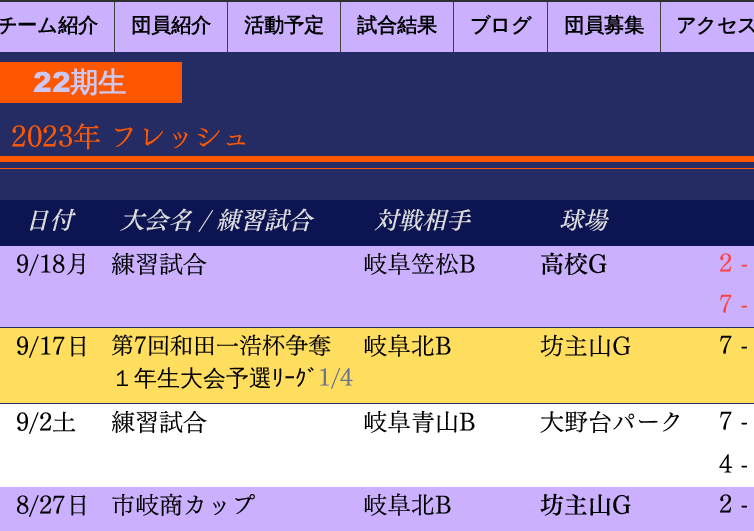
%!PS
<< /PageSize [754 531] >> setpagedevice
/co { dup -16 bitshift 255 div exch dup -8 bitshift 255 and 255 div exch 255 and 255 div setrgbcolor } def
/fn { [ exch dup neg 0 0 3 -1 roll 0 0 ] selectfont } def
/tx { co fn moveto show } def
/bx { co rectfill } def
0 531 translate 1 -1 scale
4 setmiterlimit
0 0 754 531 16#2F2E2E bx
0 2 754 50 16#CAB0FF bx
114 2 1 50 16#414141 bx
227 2 1 50 16#414141 bx
340 2 1 50 16#414141 bx
453 2 1 50 16#414141 bx
547 2 1 50 16#414141 bx
660 2 1 50 16#414141 bx
0 52 754 352 16#252C63 bx
0 62 182 41 16#FF5700 bx
0 156 754 6 16#FF5700 bx
0 168 754 1 16#FF5700 bx
0 200 754 46 16#0D1452 bx
0 246 754 81 16#CAB0FF bx
0 328 754 75 16#FFDE5F bx
0 404 754 83 16#FFFFFF bx
0 487 754 44 16#CAB0FF bx
(チーム紹介) -3 32 /WenQuanYiZenHei-Bold 20 16#000000 tx
(団員紹介) 131 32 /WenQuanYiZenHei-Bold 20 16#000000 tx
(活動予定) 244 32 /WenQuanYiZenHei-Bold 20 16#000000 tx
(試合結果) 357 32 /WenQuanYiZenHei-Bold 20 16#000000 tx
(ブログ) 470 32 /WenQuanYiZenHei-Bold 20 16#000000 tx
(団員募集) 564 32 /WenQuanYiZenHei-Bold 20 16#000000 tx
(アクセス) 676 32 /WenQuanYiZenHei-Bold 20 16#000000 tx
(22) 33 92 /arial-Black 28 16#CCC8F1 tx
(期生) 70 92 /WenQuanYiZenHei-Bold 28 16#CCC8F1 tx
(2023年 フレッシュ) 11 147 /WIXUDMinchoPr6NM-Medium 28 16#FF5700 tx
(日付) 25 229 /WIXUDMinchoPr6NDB-SemiBoldItalic 24 16#DBDBDB tx
(大会名 / 練習試合) 120 229 /WIXUDMinchoPr6NDB-SemiBoldItalic 24 16#DBDBDB tx
(対戦相手) 374 229 /WIXUDMinchoPr6NDB-SemiBoldItalic 24 16#DBDBDB tx
(球場) 559 229 /WIXUDMinchoPr6NDB-SemiBoldItalic 24 16#DBDBDB tx
(9/18月) 16 273 /WIXUDMinchoPr6NM-Medium 24 16#000000 tx
(練習試合) 111 273 /WIXUDMinchoPr6NM-Medium 24 16#000000 tx
(岐阜笠松B) 363 273 /WIXUDMinchoPr6NM-Medium 24 16#000000 tx
(高校G) 540 273 /WIXUDMinchoPr6NDB-SemiBold 24 16#000000 tx
(2 -) 719 272 /WIXUDMinchoPr6NM-Medium 24 16#FF4040 tx
(7 -) 719 313 /WIXUDMinchoPr6NM-Medium 24 16#FF4040 tx
(9/17日) 16 355 /WIXUDMinchoPr6NM-Medium 24 16#000000 tx
(第7回和田一浩杯争奪) 111 354 /WIXUDMinchoPr6NM-Medium 23 16#000000 tx
(１年生大会予選) 111 386 /WenQuanYiZenHei-Medium 23 16#000000 tx
(ﾘｰｸﾞ) 272 386 /IPAPGothic-Regular 23 16#000000 tx
(1/4) 318 386 /WIXUDMinchoPr6NM-Medium 23 16#687393 tx
(岐阜北B) 363 355 /WIXUDMinchoPr6NM-Medium 24 16#000000 tx
(坊主山G) 540 355 /WIXUDMinchoPr6NM-Medium 24 16#000000 tx
(7 -) 719 354 /WIXUDMinchoPr6NM-Medium 24 16#000000 tx
(9/2土) 16 431 /WIXUDMinchoPr6NM-Medium 24 16#000000 tx
(練習試合) 111 431 /WIXUDMinchoPr6NM-Medium 24 16#000000 tx
(岐阜青山B) 363 431 /WIXUDMinchoPr6NM-Medium 24 16#000000 tx
(大野台パーク) 540 431 /WIXUDMinchoPr6NM-Medium 24 16#000000 tx
(7 -) 719 430 /WIXUDMinchoPr6NM-Medium 24 16#000000 tx
(4 -) 719 473 /WIXUDMinchoPr6NM-Medium 24 16#000000 tx
(8/27日) 16 514 /WIXUDMinchoPr6NM-Medium 24 16#000000 tx
(市岐商カップ) 111 514 /WIXUDMinchoPr6NM-Medium 24 16#000000 tx
(岐阜北B) 363 514 /WIXUDMinchoPr6NM-Medium 24 16#000000 tx
(坊主山G) 540 514 /WIXUDMinchoPr6NDB-SemiBold 24 16#000000 tx
(2 -) 719 513 /WIXUDMinchoPr6NM-Medium 24 16#000000 tx
showpage
